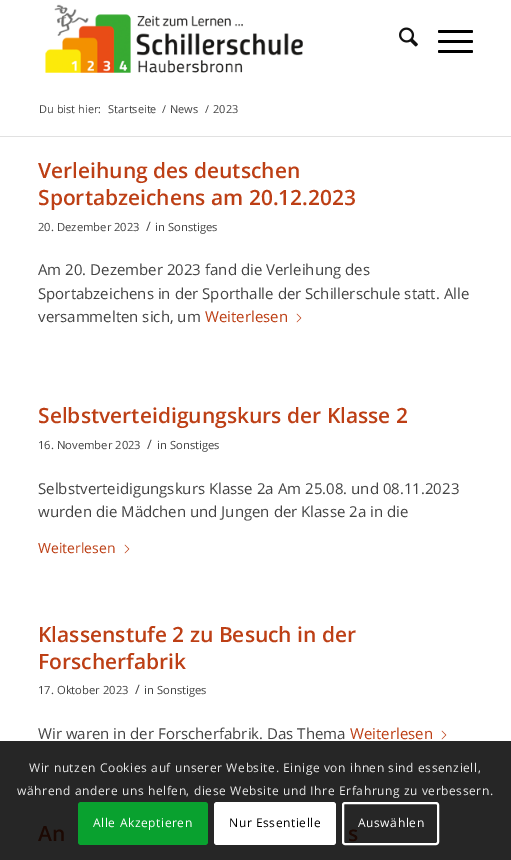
%!PS
<< /PageSize [511 860] >> setpagedevice
/mt/moveto load def
/fl/fill load def
/st/stroke load def
/lw/setlinewidth load def
/co { dup -16 bitshift 255 div exch dup -8 bitshift 255 and 255 div exch 255 and 255 div setrgbcolor } def
/fn { [ exch dup neg 0 0 3 -1 roll 0 0 ] selectfont } def
/tx { co fn moveto show } def
/bx { co rectfill } def
/rr { 5 dict begin { /r /h /w /y /x } { exch def } forall
  x r add y moveto x w add y 2 copy h add r arct x w add y h add x 1 index r arct
  x y h add x y r arct x y 2 copy exch w add exch r arct closepath end } def
/im { 5 dict begin { /h /w /y /x /name } { exch def } forall
  gsave x y translate w h scale
  w h 8 [w 0 0 h 0 0] name (r) file false 3 colorimage grestore end } def
0 860 translate 1 -1 scale
4 setmiterlimit
0 0 511 860 16#FFFFFF bx
(media/1.raw) 45 4 258 69 im
(media/2.raw) 399 27 19 20 im
16#000000 co
438 40 35 3 1.5 rr fl
438 30 35 3 1.5 rr fl
438 50 35 3 1.5 rr fl
0 741 511 119 16#262626 bx
0 136 511 1 16#E1E1E1 bx
(media/3.raw) 296 313 6 10 im
(media/3.raw) 124 544 6 10 im
(media/3.raw) 441 730 6 10 im
16#09A12F co
78 802 130 43 3 rr fl
16#FFFFFF co
214 802 122 43 3 rr fl
2 lw
343 803 95 41 2 rr st
(Du bist hier:) 39 113 /OpenSans-Regular 11 16#444444 tx
(Startseite) 108 113 /OpenSans-Regular 11 16#444444 tx
(/) 162 113 /OpenSans-Regular 11 16#444444 tx
(News) 170 113 /OpenSans-Regular 11 16#444444 tx
(/) 205 113 /OpenSans-Regular 11 16#444444 tx
(2023) 213 113 /OpenSans-Regular 11 16#444444 tx
(Verleihung des deutschen) 38 178 /OpenSans-SemiBold 21 16#BD3F15 tx
(Sportabzeichens am 20.12.2023) 38 205 /OpenSans-SemiBold 21 16#BD3F15 tx
(20. Dezember 2023) 38 231 /OpenSans-Regular 11.25 16#444444 tx
(/) 146 231 /OpenSans-Regular 13 16#444444 tx
(in Sonstiges) 155 231 /OpenSans-Regular 11.25 16#444444 tx
(Am 20. Dezember 2023 fand die Verleihung des) 38 275 /OpenSans-Regular 15 16#444444 tx
(Sportabzeichens in der Sporthalle der Schillerschule statt. Alle) 38 299 /OpenSans-Regular 15 16#444444 tx
(versammelten sich, um) 38 322 /OpenSans-Regular 15 16#444444 tx
(Weiterlesen) 205 322 /OpenSans-Regular 15 16#BD3F15 tx
(Selbstverteidigungskurs der Klasse 2) 38 423 /OpenSans-SemiBold 21 16#BD3F15 tx
(16. November 2023) 38 449 /OpenSans-Regular 11.25 16#444444 tx
(/) 147 449 /OpenSans-Regular 13 16#444444 tx
(in Sonstiges) 157 449 /OpenSans-Regular 11.25 16#444444 tx
(Selbstverteidigungskurs Klasse 2a Am 25.08. und 08.11.2023) 38 494 /OpenSans-Regular 15 16#444444 tx
(wurden die Mädchen und Jungen der Klasse 2a in die) 38 517 /OpenSans-Regular 15 16#444444 tx
(Weiterlesen) 38 553 /OpenSans-Regular 14 16#BD3F15 tx
(Klassenstufe 2 zu Besuch in der) 38 642 /OpenSans-SemiBold 21 16#BD3F15 tx
(Forscherfabrik) 38 669 /OpenSans-SemiBold 21 16#BD3F15 tx
(17. Oktober 2023) 38 694 /OpenSans-Regular 11.25 16#444444 tx
(/) 135 694 /OpenSans-Regular 13 16#444444 tx
(in Sonstiges) 144 694 /OpenSans-Regular 11.25 16#444444 tx
(Wir waren in der Forscherfabrik. Das Thema) 38 739 /OpenSans-Regular 15 16#444444 tx
(Weiterlesen) 350 739 /OpenSans-Regular 15 16#BD3F15 tx
(An) 38 841 /OpenSans-SemiBold 21 16#1C0903 tx
(s) 348 841 /OpenSans-SemiBold 21 16#1C0903 tx
/OpenSans-Regular 12 fn
16#E9E9E9 co
29 772 mt .6 0 (Wir nutzen Cookies auf unserer Website. Einige von ihnen sind essenziell,) ashow
17 795 mt .6 0 (während andere uns helfen, diese Website und Ihre Erfahrung zu verbessern.) ashow
16#FFFFFF co
93 827 mt .6 0 (Alle Akzeptieren) ashow
16#000000 co
229 827 mt .6 0 (Nur Essentielle) ashow
16#FFFFFF co
358 827 mt .6 0 (Auswählen) ashow
showpage
